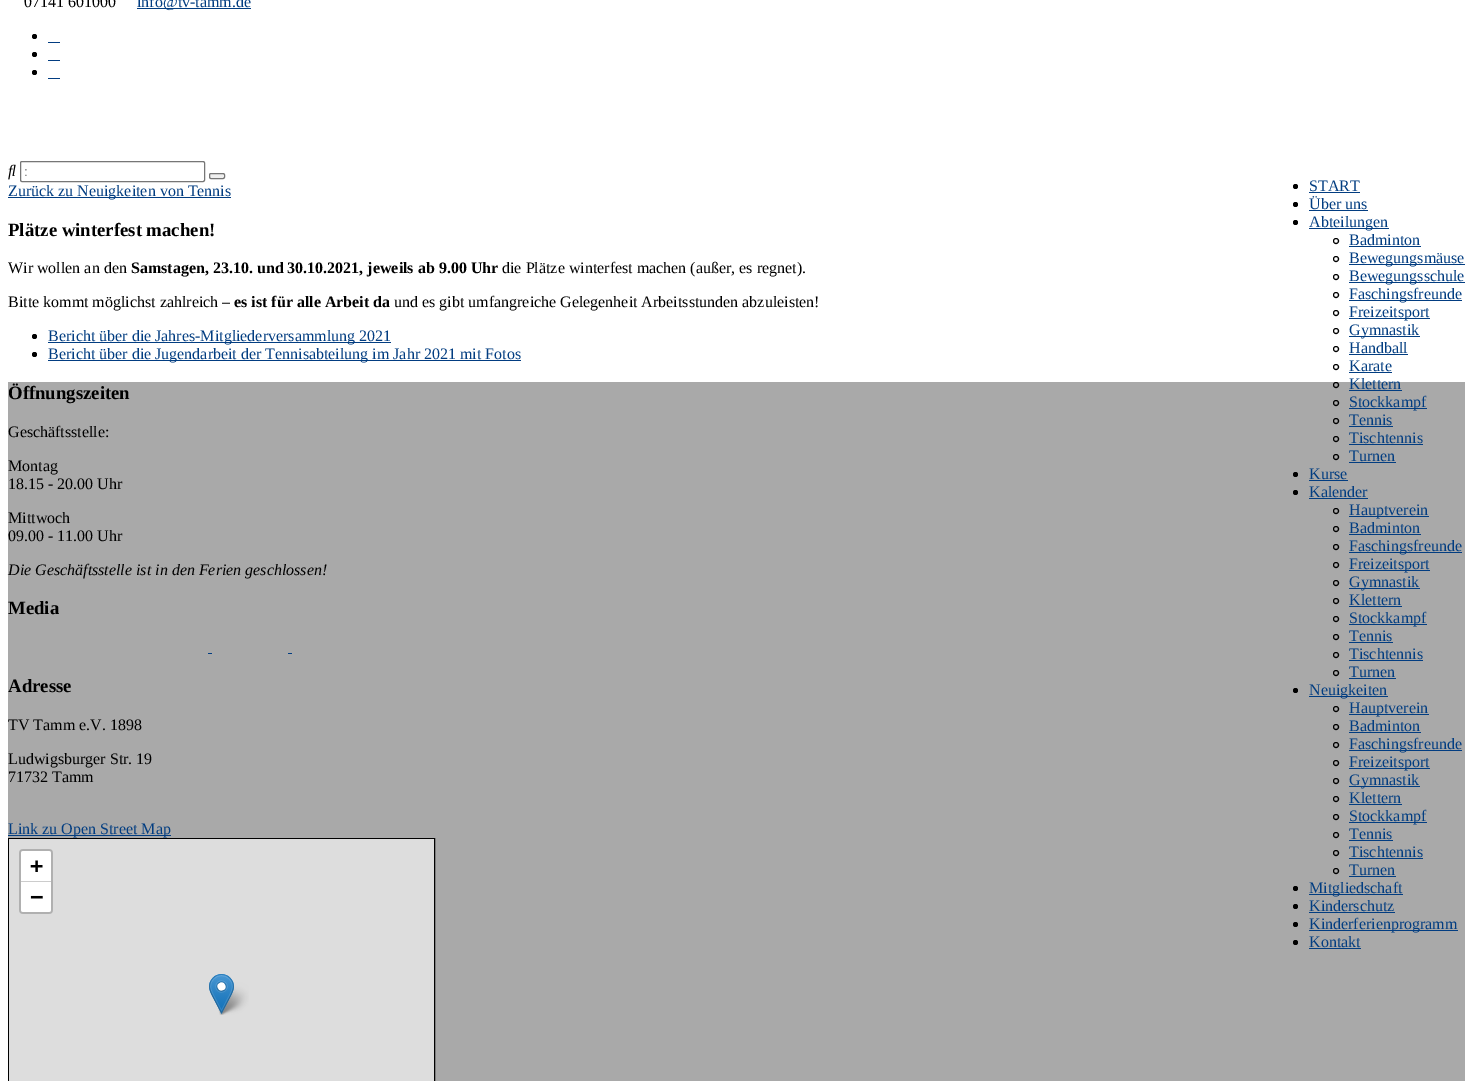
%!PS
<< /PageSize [1473 1081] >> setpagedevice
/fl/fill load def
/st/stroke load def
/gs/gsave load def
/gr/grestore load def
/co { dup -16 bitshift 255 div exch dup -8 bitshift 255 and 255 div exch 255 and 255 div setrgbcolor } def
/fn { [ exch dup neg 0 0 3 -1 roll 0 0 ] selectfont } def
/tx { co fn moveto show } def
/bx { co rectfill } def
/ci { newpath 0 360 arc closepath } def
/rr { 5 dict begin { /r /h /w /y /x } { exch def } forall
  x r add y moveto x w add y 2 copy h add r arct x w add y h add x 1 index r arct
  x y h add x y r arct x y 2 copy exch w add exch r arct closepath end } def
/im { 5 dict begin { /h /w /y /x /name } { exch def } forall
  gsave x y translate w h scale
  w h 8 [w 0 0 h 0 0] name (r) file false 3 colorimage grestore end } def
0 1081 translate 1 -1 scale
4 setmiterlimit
0 0 1473 1081 16#FFFFFF bx
137 8 114 1 16#023D81 bx
16#000000 co
34.5 36.5 2.5 ci fl
48 42 12 1 16#023D81 bx
16#000000 co
34.5 54.5 2.5 ci fl
48 60 12 1 16#023D81 bx
16#000000 co
34.5 72.5 2.5 ci fl
48 78 12 1 16#023D81 bx
(media/1.raw) 8 164 8 16 im
16#767676 co
20.5 161.5 184 20 1.5 rr st
16#EFEFEF co
209.5 173.5 15 5 1.5 rr gs fl gr
16#767676 co
st
16#000000 co
1295.5 186.5 2.5 ci fl
1309 192 51 1 16#023D81 bx
16#000000 co
1295.5 204.5 2.5 ci fl
1309 210 59 1 16#023D81 bx
16#000000 co
1295.5 222.5 2.5 ci fl
1309 228 80 1 16#023D81 bx
16#000000 co
1336 241 2.5 ci st
1349 246 72 1 16#023D81 bx
16#000000 co
1336 259 2.5 ci st
1349 264 116 1 16#023D81 bx
16#000000 co
1336 277 2.5 ci st
1349 282 116 1 16#023D81 bx
16#000000 co
1336 295 2.5 ci st
1349 300 113 1 16#023D81 bx
16#000000 co
1336 313 2.5 ci st
1349 318 81 1 16#023D81 bx
16#000000 co
1336 331 2.5 ci st
1349 336 71 1 16#023D81 bx
16#000000 co
1336 349 2.5 ci st
1349 354 59 1 16#023D81 bx
16#000000 co
1336 367 2.5 ci st
1349 372 43 1 16#023D81 bx
8 382 1457 699 16#A9A9A9 bx
16#000000 co
1336 385 2.5 ci st
1349 390 53 1 16#023D81 bx
16#000000 co
1336 403 2.5 ci st
1349 408 78 1 16#023D81 bx
16#000000 co
1336 421 2.5 ci st
1349 426 44 1 16#023D81 bx
16#000000 co
1336 439 2.5 ci st
1349 444 74 1 16#023D81 bx
16#000000 co
1336 457 2.5 ci st
1349 462 47 1 16#023D81 bx
16#000000 co
1295.5 474.5 2.5 ci fl
1309 480 39 1 16#023D81 bx
16#000000 co
1295.5 492.5 2.5 ci fl
1309 498 59 1 16#023D81 bx
16#000000 co
1336 511 2.5 ci st
1349 516 80 1 16#023D81 bx
16#000000 co
1336 529 2.5 ci st
1349 534 72 1 16#023D81 bx
16#000000 co
1336 547 2.5 ci st
1349 552 113 1 16#023D81 bx
16#000000 co
1336 565 2.5 ci st
1349 570 81 1 16#023D81 bx
16#000000 co
1336 583 2.5 ci st
1349 588 71 1 16#023D81 bx
16#000000 co
1336 601 2.5 ci st
1349 606 53 1 16#023D81 bx
16#000000 co
1336 619 2.5 ci st
1349 624 78 1 16#023D81 bx
16#000000 co
1336 637 2.5 ci st
1349 642 44 1 16#023D81 bx
16#000000 co
1336 655 2.5 ci st
1349 660 74 1 16#023D81 bx
16#000000 co
1336 673 2.5 ci st
1349 678 47 1 16#023D81 bx
16#000000 co
1295.5 690.5 2.5 ci fl
1309 696 79 1 16#023D81 bx
16#000000 co
1336 709 2.5 ci st
1349 714 80 1 16#023D81 bx
16#000000 co
1336 727 2.5 ci st
1349 732 72 1 16#023D81 bx
16#000000 co
1336 745 2.5 ci st
1349 750 113 1 16#023D81 bx
16#000000 co
1336 763 2.5 ci st
1349 768 81 1 16#023D81 bx
16#000000 co
1336 781 2.5 ci st
1349 786 71 1 16#023D81 bx
16#000000 co
1336 799 2.5 ci st
1349 804 53 1 16#023D81 bx
16#000000 co
1336 817 2.5 ci st
1349 822 78 1 16#023D81 bx
16#000000 co
1336 835 2.5 ci st
1349 840 44 1 16#023D81 bx
16#000000 co
1336 853 2.5 ci st
1349 858 74 1 16#023D81 bx
16#000000 co
1336 871 2.5 ci st
1349 876 47 1 16#023D81 bx
16#000000 co
1295.5 888.5 2.5 ci fl
1309 894 94 1 16#023D81 bx
16#000000 co
1295.5 906.5 2.5 ci fl
1309 912 86 1 16#023D81 bx
16#000000 co
1295.5 924.5 2.5 ci fl
1309 930 149 1 16#023D81 bx
16#000000 co
1295.5 942.5 2.5 ci fl
1309 948 52 1 16#023D81 bx
8 197 223 1 16#023D81 bx
16#000000 co
34.5 336.5 2.5 ci fl
48 342 343 1 16#023D81 bx
16#000000 co
34.5 354.5 2.5 ci fl
48 360 473 1 16#023D81 bx
208 653 4 1 16#023D81 bx
288 653 4 1 16#023D81 bx
8 835 163 1 16#023D81 bx
16#000000 co
8.5 838.5 426 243 rectstroke
(media/2.raw) 9 839 425 242 im
(07141 601000) 24 7 /LiberationSerif-Regular 16 16#000000 tx
(info@tv-tamm.de) 137 7 /LiberationSerif-Regular 16 16#023D81 tx
(:) 24 176 /LiberationSans-Regular 13 16#757575 tx
(START) 1309 191 /LiberationSerif-Regular 16 16#023D81 tx
(Über uns) 1309 209 /LiberationSerif-Regular 16 16#023D81 tx
(Abteilungen) 1309 227 /LiberationSerif-Regular 16 16#023D81 tx
(Badminton) 1349 245 /LiberationSerif-Regular 16 16#023D81 tx
(Bewegungsmäuse) 1349 263 /LiberationSerif-Regular 16 16#023D81 tx
(Bewegungsschule) 1349 281 /LiberationSerif-Regular 16 16#023D81 tx
(Faschingsfreunde) 1349 299 /LiberationSerif-Regular 16 16#023D81 tx
(Freizeitsport) 1349 317 /LiberationSerif-Regular 16 16#023D81 tx
(Gymnastik) 1349 335 /LiberationSerif-Regular 16 16#023D81 tx
(Handball) 1349 353 /LiberationSerif-Regular 16 16#023D81 tx
(Karate) 1349 371 /LiberationSerif-Regular 16 16#023D81 tx
(Klettern) 1349 389 /LiberationSerif-Regular 16 16#023D81 tx
(Stockkampf) 1349 407 /LiberationSerif-Regular 16 16#023D81 tx
(Tennis) 1349 425 /LiberationSerif-Regular 16 16#023D81 tx
(Tischtennis) 1349 443 /LiberationSerif-Regular 16 16#023D81 tx
(Turnen) 1349 461 /LiberationSerif-Regular 16 16#023D81 tx
(Kurse) 1309 479 /LiberationSerif-Regular 16 16#023D81 tx
(Kalender) 1309 497 /LiberationSerif-Regular 16 16#023D81 tx
(Hauptverein) 1349 515 /LiberationSerif-Regular 16 16#023D81 tx
(Badminton) 1349 533 /LiberationSerif-Regular 16 16#023D81 tx
(Faschingsfreunde) 1349 551 /LiberationSerif-Regular 16 16#023D81 tx
(Freizeitsport) 1349 569 /LiberationSerif-Regular 16 16#023D81 tx
(Gymnastik) 1349 587 /LiberationSerif-Regular 16 16#023D81 tx
(Klettern) 1349 605 /LiberationSerif-Regular 16 16#023D81 tx
(Stockkampf) 1349 623 /LiberationSerif-Regular 16 16#023D81 tx
(Tennis) 1349 641 /LiberationSerif-Regular 16 16#023D81 tx
(Tischtennis) 1349 659 /LiberationSerif-Regular 16 16#023D81 tx
(Turnen) 1349 677 /LiberationSerif-Regular 16 16#023D81 tx
(Neuigkeiten) 1309 695 /LiberationSerif-Regular 16 16#023D81 tx
(Hauptverein) 1349 713 /LiberationSerif-Regular 16 16#023D81 tx
(Badminton) 1349 731 /LiberationSerif-Regular 16 16#023D81 tx
(Faschingsfreunde) 1349 749 /LiberationSerif-Regular 16 16#023D81 tx
(Freizeitsport) 1349 767 /LiberationSerif-Regular 16 16#023D81 tx
(Gymnastik) 1349 785 /LiberationSerif-Regular 16 16#023D81 tx
(Klettern) 1349 803 /LiberationSerif-Regular 16 16#023D81 tx
(Stockkampf) 1349 821 /LiberationSerif-Regular 16 16#023D81 tx
(Tennis) 1349 839 /LiberationSerif-Regular 16 16#023D81 tx
(Tischtennis) 1349 857 /LiberationSerif-Regular 16 16#023D81 tx
(Turnen) 1349 875 /LiberationSerif-Regular 16 16#023D81 tx
(Mitgliedschaft) 1309 893 /LiberationSerif-Regular 16 16#023D81 tx
(Kinderschutz) 1309 911 /LiberationSerif-Regular 16 16#023D81 tx
(Kinderferienprogramm) 1309 929 /LiberationSerif-Regular 16 16#023D81 tx
(Kontakt) 1309 947 /LiberationSerif-Regular 16 16#023D81 tx
(Zurück zu Neuigkeiten von Tennis) 8 196 /LiberationSerif-Regular 16 16#023D81 tx
(Plätze winterfest machen!) 8 236 /LiberationSerif-Bold 18.75 16#000000 tx
(Wir wollen an den) 8 273 /LiberationSerif-Regular 16 16#000000 tx
(Samstagen, 23.10. und 30.10.2021, jeweils ab 9.00 Uhr) 131 273 /LiberationSerif-Bold 16 16#000000 tx
(die Plätze winterfest machen \(außer, es regnet\).) 502 273 /LiberationSerif-Regular 16 16#000000 tx
(Bitte kommt möglichst zahlreich –) 8 307 /LiberationSerif-Regular 16 16#000000 tx
(es ist für alle Arbeit da) 234 307 /LiberationSerif-Bold 16 16#000000 tx
(und es gibt umfangreiche Gelegenheit Arbeitsstunden abzuleisten!) 394 307 /LiberationSerif-Regular 16 16#000000 tx
(Bericht über die Jahres-Mitgliederversammlung 2021) 48 341 /LiberationSerif-Regular 16 16#023D81 tx
(Bericht über die Jugendarbeit der Tennisabteilung im Jahr 2021 mit Fotos) 48 359 /LiberationSerif-Regular 16 16#023D81 tx
(Öffnungszeiten) 8 399 /LiberationSerif-Bold 18.75 16#000000 tx
(Geschäftsstelle:) 8 437 /LiberationSerif-Regular 16 16#000000 tx
(Montag) 8 471 /LiberationSerif-Regular 16 16#000000 tx
(18.15 - 20.00 Uhr) 8 489 /LiberationSerif-Regular 16 16#000000 tx
(Mittwoch) 8 523 /LiberationSerif-Regular 16 16#000000 tx
(09.00 - 11.00 Uhr) 8 541 /LiberationSerif-Regular 16 16#000000 tx
(Die Geschäftsstelle ist in den Ferien geschlossen!) 8 575 /LiberationSerif-Italic 16 16#000000 tx
(Media) 8 614 /LiberationSerif-Bold 18.75 16#000000 tx
(Adresse) 8 692 /LiberationSerif-Bold 18.75 16#000000 tx
(TV Tamm e.V. 1898) 8 730 /LiberationSerif-Regular 16 16#000000 tx
(Ludwigsburger Str. 19) 8 764 /LiberationSerif-Regular 16 16#000000 tx
(71732 Tamm) 8 782 /LiberationSerif-Regular 16 16#000000 tx
(Link zu Open Street Map) 8 834 /LiberationSerif-Regular 16 16#023D81 tx
showpage
